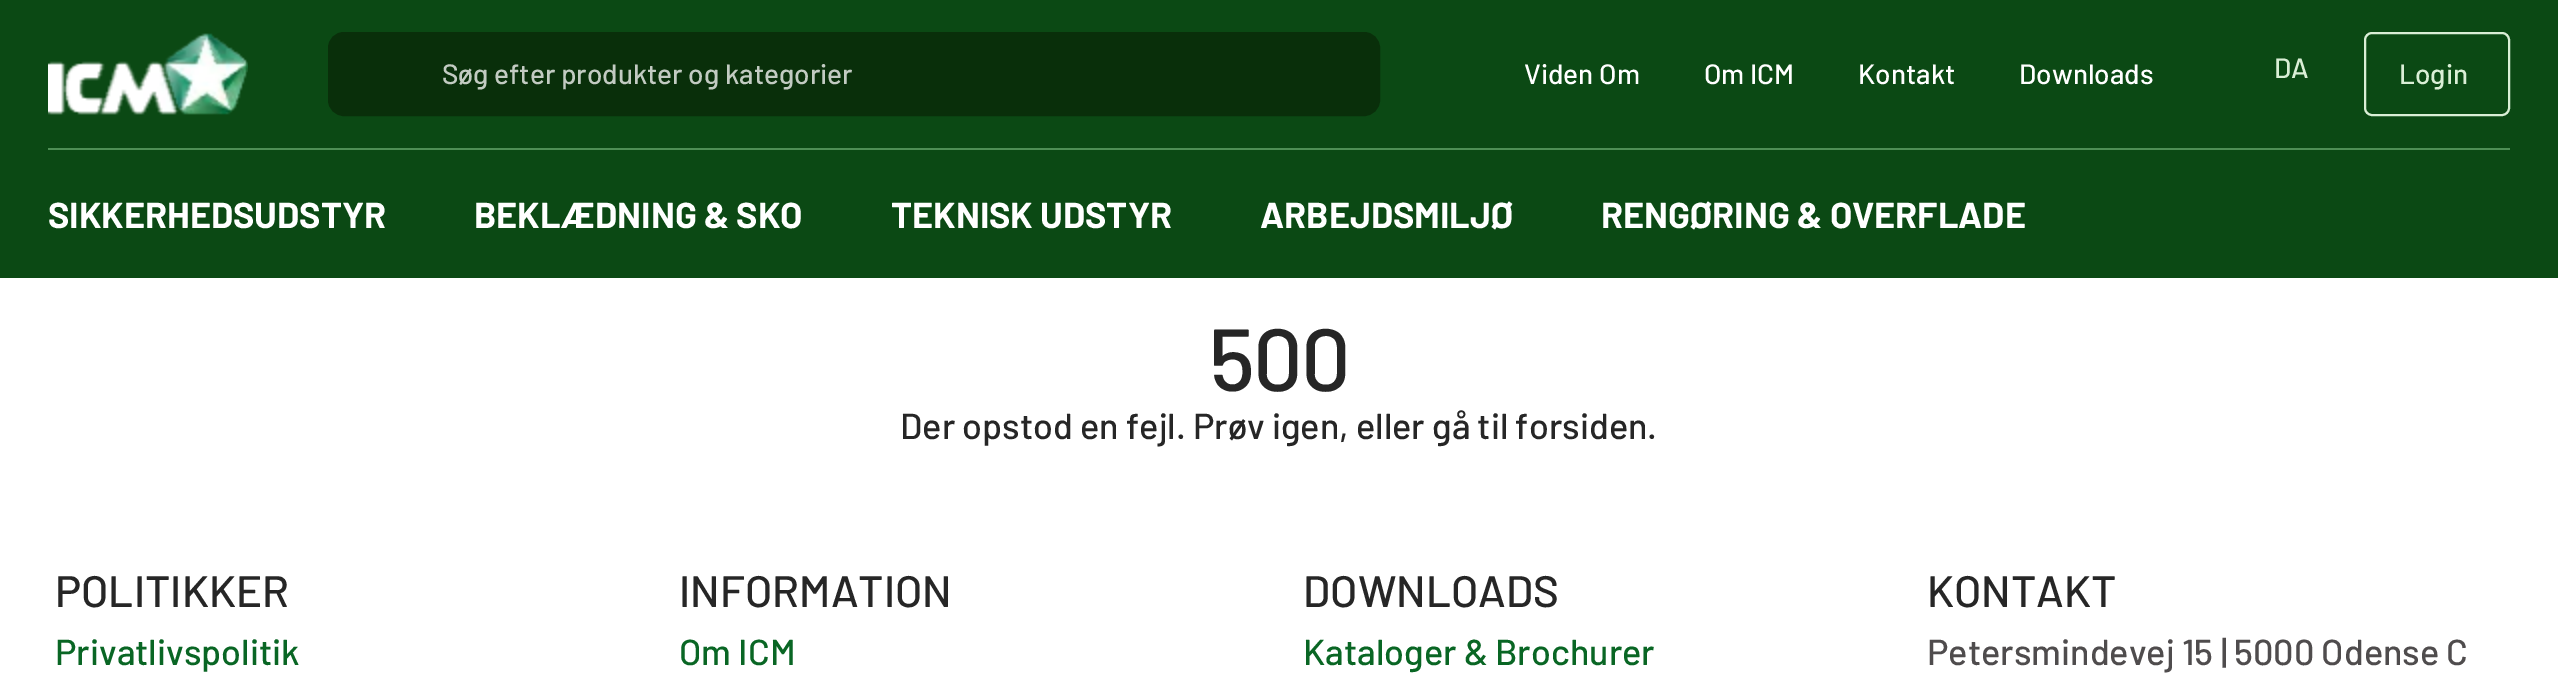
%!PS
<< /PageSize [2558 693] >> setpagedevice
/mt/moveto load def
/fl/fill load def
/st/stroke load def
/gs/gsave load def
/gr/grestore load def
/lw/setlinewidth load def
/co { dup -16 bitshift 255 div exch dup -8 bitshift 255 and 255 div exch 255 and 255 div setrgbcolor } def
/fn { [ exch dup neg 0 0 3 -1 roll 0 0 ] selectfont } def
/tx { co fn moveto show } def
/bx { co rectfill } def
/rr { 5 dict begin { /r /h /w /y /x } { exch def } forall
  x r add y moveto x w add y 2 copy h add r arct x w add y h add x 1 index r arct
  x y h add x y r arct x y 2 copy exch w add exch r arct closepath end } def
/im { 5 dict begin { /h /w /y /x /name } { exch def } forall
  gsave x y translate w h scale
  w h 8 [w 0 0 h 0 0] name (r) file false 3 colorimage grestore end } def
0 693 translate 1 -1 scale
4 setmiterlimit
0 0 2558 693 16#FFFFFF bx
0 0 2558 278 16#0B4914 bx
(media/1.raw) 48 33 200 82 im
16#092F0A co
329 33 1050 82 15 rr gs fl gr
2 lw
st
16#DAEFD6 co
2365 33 144 82 7 rr st
48 148 2462 2 16#4E8F55 bx
(Søg efter produkter og kategorier) 442 84 /Barlow-Medium 28 16#C2CBC2 tx
(Viden Om) 1524 84 /Barlow-Medium 28 16#FFFFFF tx
(Om ICM) 1704 84 /Barlow-Medium 28 16#FFFFFF tx
(Kontakt) 1858 84 /Barlow-Medium 28 16#FFFFFF tx
(Downloads) 2019 84 /Barlow-Medium 28 16#FFFFFF tx
(DA) 2274 78 /Barlow-Medium 28 16#DAEFD6 tx
(Login) 2399 84 /Barlow-Medium 28 16#DAEFD6 tx
(SIKKERHEDSUDSTYR) 48 228 /Barlow-Bold 36 16#FFFFFF tx
(BEKLÆDNING & SKO) 474 228 /Barlow-Bold 36 16#FFFFFF tx
(TEKNISK UDSTYR) 891 228 /Barlow-Bold 36 16#FFFFFF tx
(ARBEJDSMILJØ) 1260 228 /Barlow-Bold 36 16#FFFFFF tx
(RENGØRING & OVERFLADE) 1601 228 /Barlow-Bold 36 16#FFFFFF tx
/Barlow-Medium 88 fn
16#262626 co
1209 391 mt -2 0 (500) ashow
(Der opstod en fejl. Prøv igen, eller gå til forsiden.) 900 439 /Barlow-Medium 36 16#262626 tx
(POLITIKKER) 55 607 /Barlow-Medium 44 16#262626 tx
(Privatlivspolitik) 55 665 /Barlow-Medium 36 16#096624 tx
(INFORMATION) 679 607 /Barlow-Medium 44 16#262626 tx
(Om ICM) 679 665 /Barlow-Medium 36 16#096624 tx
(DOWNLOADS) 1303 607 /Barlow-Medium 44 16#262626 tx
(Kataloger & Brochurer) 1303 665 /Barlow-Medium 36 16#096624 tx
(KONTAKT) 1927 607 /Barlow-Medium 44 16#262626 tx
(Petersmindevej 15 | 5000 Odense C) 1927 665 /Barlow-Medium 36 16#4F4C4D tx
showpage
